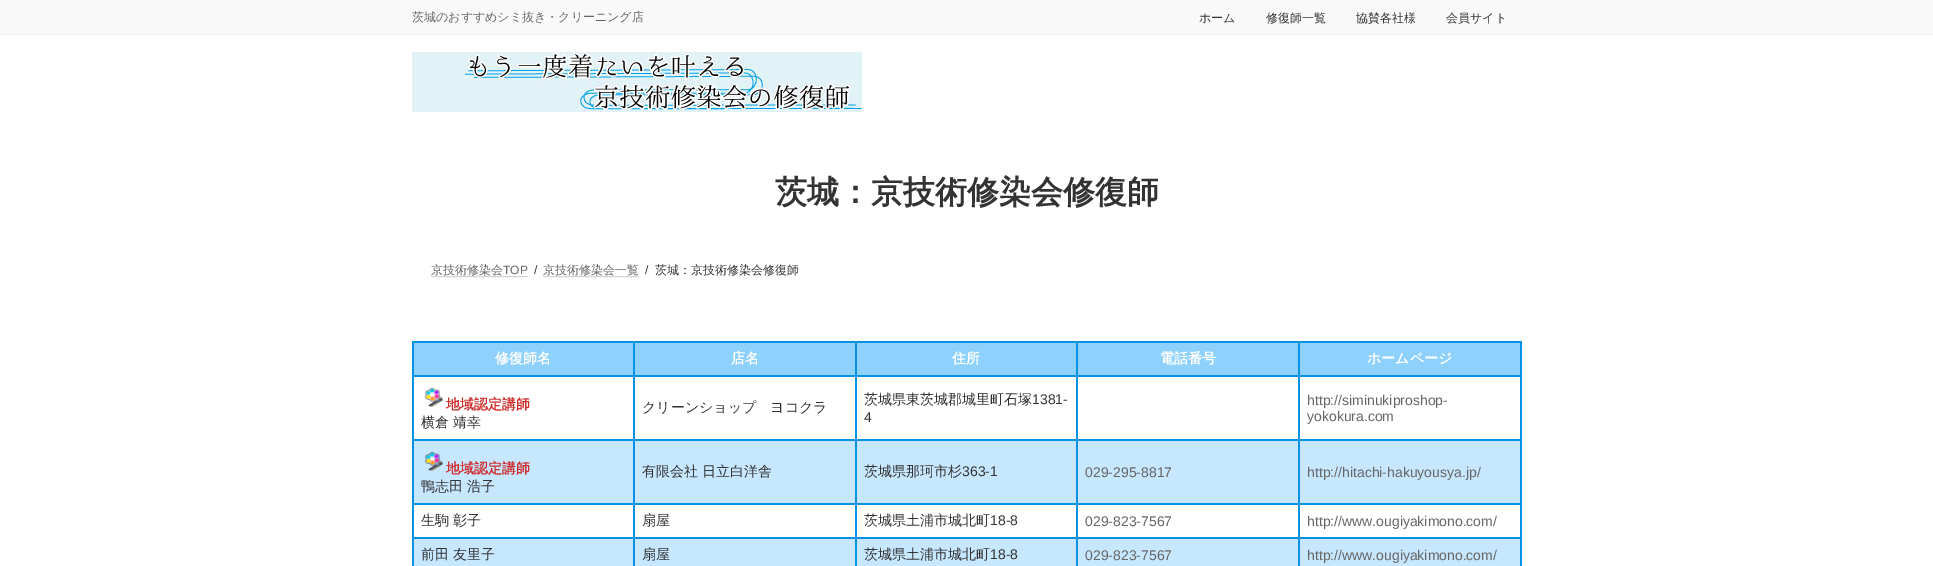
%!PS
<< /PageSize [1933 566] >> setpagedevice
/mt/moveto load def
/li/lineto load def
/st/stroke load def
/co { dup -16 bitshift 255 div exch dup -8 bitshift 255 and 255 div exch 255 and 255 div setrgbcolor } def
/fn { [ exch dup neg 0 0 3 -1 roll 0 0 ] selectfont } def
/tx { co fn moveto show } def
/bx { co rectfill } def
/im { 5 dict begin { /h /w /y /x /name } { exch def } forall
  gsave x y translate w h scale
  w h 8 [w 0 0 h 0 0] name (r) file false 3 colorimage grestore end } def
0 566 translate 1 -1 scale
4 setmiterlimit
0 0 1933 566 16#FFFFFF bx
0 0 1933 34 16#F9F9F9 bx
0 34 1933 1 16#EFEFEF bx
(media/1.raw) 412 52 450 60 im
16#B3B3B3 co
[1 1] 0 setdash
431.5 276.5 mt 528 276.5 li st
543.5 276.5 mt 639.5 276.5 li st
412 341 1110 2 16#0693E3 bx
1520 341 2 225 16#0693E3 bx
412 341 2 225 16#0693E3 bx
414 343 219 32 16#8ED1FC bx
635 343 220 32 16#8ED1FC bx
857 343 219 32 16#8ED1FC bx
1078 343 220 32 16#8ED1FC bx
1300 343 220 32 16#8ED1FC bx
412 375 1110 2 16#0693E3 bx
(media/2.raw) 425 387 19 20 im
414 441 1106 62 16#C7E7FF bx
412 439 1110 2 16#0693E3 bx
(media/3.raw) 425 451 19 20 im
412 503 1110 2 16#0693E3 bx
414 539 1106 27 16#C7E7FF bx
412 537 1110 2 16#0693E3 bx
633 341 2 225 16#0693E3 bx
855 341 2 225 16#0693E3 bx
1076 341 2 225 16#0693E3 bx
1298 341 2 225 16#0693E3 bx
(茨城のおすすめシミ抜き・クリーニング店) 412 21 /WenQuanYiZenHei-Medium 12 16#666666 tx
(ホーム) 1199 22 /WenQuanYiZenHei-Medium 12 16#333333 tx
(修復師一覧) 1266 22 /WenQuanYiZenHei-Medium 12 16#333333 tx
(協賛各社様) 1356 22 /WenQuanYiZenHei-Medium 12 16#333333 tx
(会員サイト) 1446 22 /WenQuanYiZenHei-Medium 12 16#333333 tx
(茨城：京技術修染会修復師) 775 203 /WenQuanYiZenHei-Bold 32 16#333333 tx
(京技術修染会) 431 274 /WenQuanYiZenHei-Medium 12 16#666666 tx
(TOP) 503 274 /LiberationSans-Regular 12 16#666666 tx
(/) 534 274 /LiberationSans-Regular 12 16#333333 tx
(京技術修染会一覧) 543 274 /WenQuanYiZenHei-Medium 12 16#666666 tx
(/) 645 274 /LiberationSans-Regular 12 16#333333 tx
(茨城：京技術修染会修復師) 655 274 /WenQuanYiZenHei-Medium 12 16#333333 tx
(修復師名) 495 363 /WenQuanYiZenHei-Bold 14 16#FFFFFF tx
(店名) 731 363 /WenQuanYiZenHei-Bold 14 16#FFFFFF tx
(住所) 952 363 /WenQuanYiZenHei-Bold 14 16#FFFFFF tx
(電話番号) 1160 363 /WenQuanYiZenHei-Bold 14 16#FFFFFF tx
(ホームページ) 1367 363 /WenQuanYiZenHei-Bold 14 16#FFFFFF tx
(地域認定講師) 446 409 /WenQuanYiZenHei-Bold 14 16#CF2E2E tx
(横倉 靖幸) 421 427 /WenQuanYiZenHei-Medium 14 16#333333 tx
(クリーンショップ　ヨコクラ) 642 412 /WenQuanYiZenHei-Medium 14 16#333333 tx
(茨城県東茨城郡城里町石塚) 864 404 /WenQuanYiZenHei-Medium 14 16#333333 tx
(1381-) 1032 404 /LiberationSans-Regular 14 16#333333 tx
(4) 864 422 /LiberationSans-Regular 14 16#333333 tx
(http://siminukiproshop-) 1307 405 /LiberationSans-Regular 14 16#666666 tx
(yokokura.com) 1307 421 /LiberationSans-Regular 14 16#666666 tx
(地域認定講師) 446 473 /WenQuanYiZenHei-Bold 14 16#CF2E2E tx
(鴨志田 浩子) 421 491 /WenQuanYiZenHei-Medium 14 16#333333 tx
(有限会社 日立白洋舎) 642 476 /WenQuanYiZenHei-Medium 14 16#333333 tx
(茨城県那珂市杉) 864 476 /WenQuanYiZenHei-Medium 14 16#333333 tx
(363-1) 962 476 /LiberationSans-Regular 14 16#333333 tx
(029-295-8817) 1085 477 /LiberationSans-Regular 14 16#666666 tx
(http://hitachi-hakuyousya.jp/) 1307 477 /LiberationSans-Regular 14 16#666666 tx
(生駒 彰子) 421 525 /WenQuanYiZenHei-Medium 14 16#333333 tx
(扇屋) 642 525 /WenQuanYiZenHei-Medium 14 16#333333 tx
(茨城県土浦市城北町) 864 525 /WenQuanYiZenHei-Medium 14 16#333333 tx
(18-8) 990 525 /LiberationSans-Regular 14 16#333333 tx
(029-823-7567) 1085 526 /LiberationSans-Regular 14 16#666666 tx
(http://www.ougiyakimono.com/) 1307 526 /LiberationSans-Regular 14 16#666666 tx
(前田 友里子) 421 559 /WenQuanYiZenHei-Medium 14 16#333333 tx
(扇屋) 642 559 /WenQuanYiZenHei-Medium 14 16#333333 tx
(茨城県土浦市城北町) 864 559 /WenQuanYiZenHei-Medium 14 16#333333 tx
(18-8) 990 559 /LiberationSans-Regular 14 16#333333 tx
(029-823-7567) 1085 560 /LiberationSans-Regular 14 16#666666 tx
(http://www.ougiyakimono.com/) 1307 560 /LiberationSans-Regular 14 16#666666 tx
showpage
